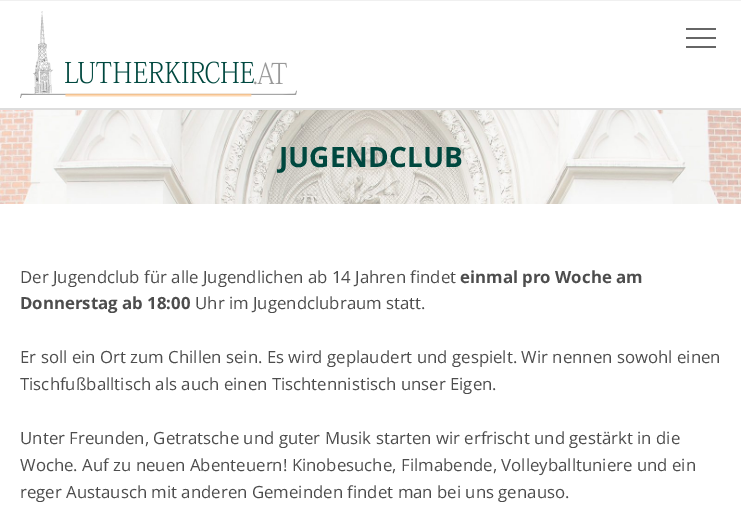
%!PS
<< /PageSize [741 507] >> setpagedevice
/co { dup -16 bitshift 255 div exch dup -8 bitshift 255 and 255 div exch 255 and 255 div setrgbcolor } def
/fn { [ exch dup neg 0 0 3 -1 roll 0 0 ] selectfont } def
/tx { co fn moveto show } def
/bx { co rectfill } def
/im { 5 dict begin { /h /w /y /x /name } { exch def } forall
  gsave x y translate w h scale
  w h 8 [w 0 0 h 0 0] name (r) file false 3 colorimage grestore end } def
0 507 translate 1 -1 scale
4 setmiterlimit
0 0 741 507 16#F0F0F0 bx
0 1 741 107 16#FFFFFF bx
0 108 741 2 16#DDDDDD bx
(media/1.raw) 20 11 277 87 im
686 28 30 2 16#666666 bx
686 46 30 2 16#666666 bx
686 37 30 2 16#666666 bx
(media/2.raw) 0 110 741 94 im
0 204 741 303 16#FFFFFF bx
(JUGENDCLUB) 279 167 /OpenSans-Bold 28 16#00483F tx
(Der Jugendclub für alle Jugendlichen ab 14 Jahren findet) 20 283 /OpenSans-Regular 16.8 16#4D4D4D tx
(einmal pro Woche am) 460 283 /OpenSans-Bold 16.8 16#4D4D4D tx
(Donnerstag ab 18:00) 20 309 /OpenSans-Bold 16.8 16#4D4D4D tx
(Uhr im Jugendclubraum statt.) 195 309 /OpenSans-Regular 16.8 16#4D4D4D tx
(Er soll ein Ort zum Chillen sein. Es wird geplaudert und gespielt. Wir nennen sowohl einen) 20 363 /OpenSans-Regular 16.8 16#4D4D4D tx
(Tischfußballtisch als auch einen Tischtennistisch unser Eigen.) 20 390 /OpenSans-Regular 16.8 16#4D4D4D tx
(Unter Freunden, Getratsche und guter Musik starten wir erfrischt und gestärkt in die) 20 444 /OpenSans-Regular 16.8 16#4D4D4D tx
(Woche. Auf zu neuen Abenteuern! Kinobesuche, Filmabende, Volleyballtuniere und ein) 20 471 /OpenSans-Regular 16.8 16#4D4D4D tx
(reger Austausch mit anderen Gemeinden findet man bei uns genauso.) 20 498 /OpenSans-Regular 16.8 16#4D4D4D tx
showpage
